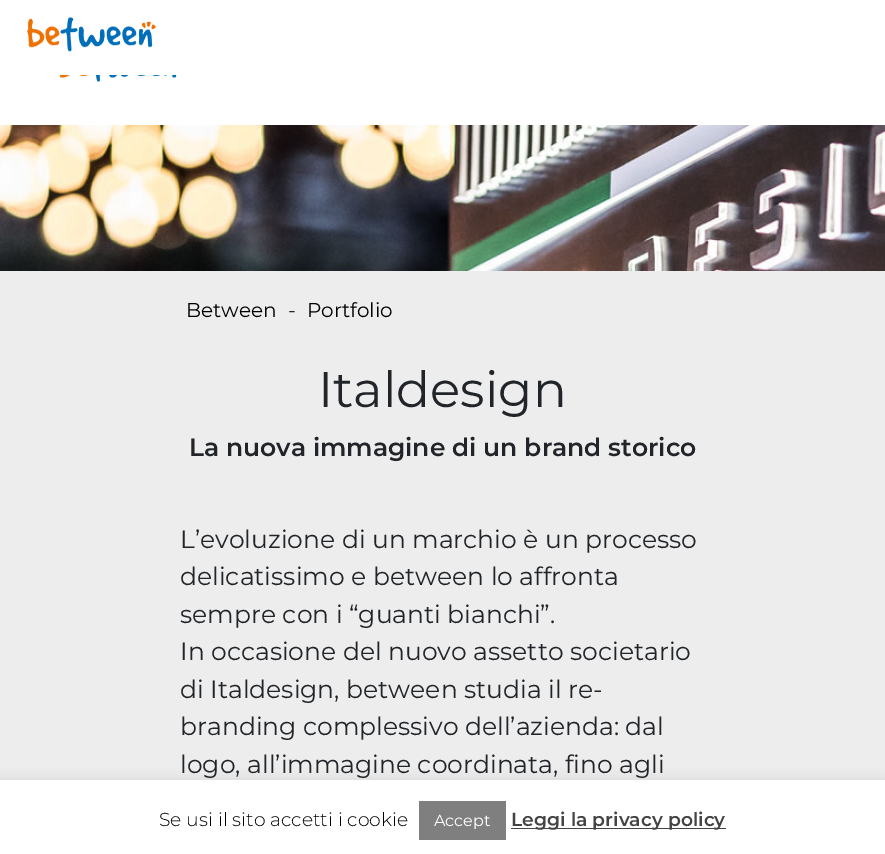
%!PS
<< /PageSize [885 854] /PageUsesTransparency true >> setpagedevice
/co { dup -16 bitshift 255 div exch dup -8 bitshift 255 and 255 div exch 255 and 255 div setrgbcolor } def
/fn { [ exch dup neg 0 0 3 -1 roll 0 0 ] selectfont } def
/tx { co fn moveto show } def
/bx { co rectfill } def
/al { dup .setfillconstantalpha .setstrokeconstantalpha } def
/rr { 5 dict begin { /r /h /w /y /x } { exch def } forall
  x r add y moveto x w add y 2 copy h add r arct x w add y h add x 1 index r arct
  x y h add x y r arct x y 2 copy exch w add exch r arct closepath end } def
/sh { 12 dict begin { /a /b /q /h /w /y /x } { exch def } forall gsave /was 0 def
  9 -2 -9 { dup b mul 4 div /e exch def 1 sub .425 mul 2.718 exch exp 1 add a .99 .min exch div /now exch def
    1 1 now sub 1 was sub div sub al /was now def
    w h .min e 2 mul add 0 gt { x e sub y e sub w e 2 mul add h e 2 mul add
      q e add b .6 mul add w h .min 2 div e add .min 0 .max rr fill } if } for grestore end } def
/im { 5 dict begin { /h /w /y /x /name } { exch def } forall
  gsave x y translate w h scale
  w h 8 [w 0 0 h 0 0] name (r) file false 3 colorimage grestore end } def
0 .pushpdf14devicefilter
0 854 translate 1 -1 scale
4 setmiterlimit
0 0 885 854 16#EDEDED bx
0 0 885 125 16#FFFFFF bx
(media/1.raw) 27 17 129 35 im
(media/2.raw) 59 75 118 7 im
(media/3.raw) 0 125 885 146 im
16#ACABAB co
0 779 885 75 0 6 .3 sh
0 780 885 74 16#FFFFFF bx
419 801 87 39 16#7F7F7F bx
511 828 215 1 16#444444 bx
(Between) 186 317 /Montserrat-Thin 20 16#000000 tx
(-) 288 317 /Montserrat-Thin 20 16#212529 tx
(Portfolio) 307 317 /Montserrat-Thin 20 16#000000 tx
(Italdesign) 318 407 /Montserrat-Thin 50 16#212529 tx
(La nuova immagine di un brand storico) 189 456 /Montserrat-SemiBold 25 16#212529 tx
(L’evoluzione di un marchio è un processo) 180 548 /Montserrat-Thin 25 16#212529 tx
(delicatissimo e between lo affronta) 180 585 /Montserrat-Thin 25 16#212529 tx
(sempre con i “guanti bianchi”.) 180 623 /Montserrat-Thin 25 16#212529 tx
(In occasione del nuovo assetto societario) 180 660 /Montserrat-Thin 25 16#212529 tx
(di Italdesign, between studia il re-) 180 698 /Montserrat-Thin 25 16#212529 tx
(branding complessivo dell’azienda: dal) 180 735 /Montserrat-Thin 25 16#212529 tx
(logo, all’immagine coordinata, fino agli) 180 773 /Montserrat-Thin 25 16#212529 tx
(Se usi il sito accetti i cookie) 159 826 /Montserrat-Light 18.75 16#000000 tx
(Accept) 434 826 /Montserrat-Thin 16 16#FFFFFF tx
(Leggi la privacy policy) 511 826 /Montserrat-SemiBold 18.75 16#444444 tx
.poppdf14devicefilter showpage
